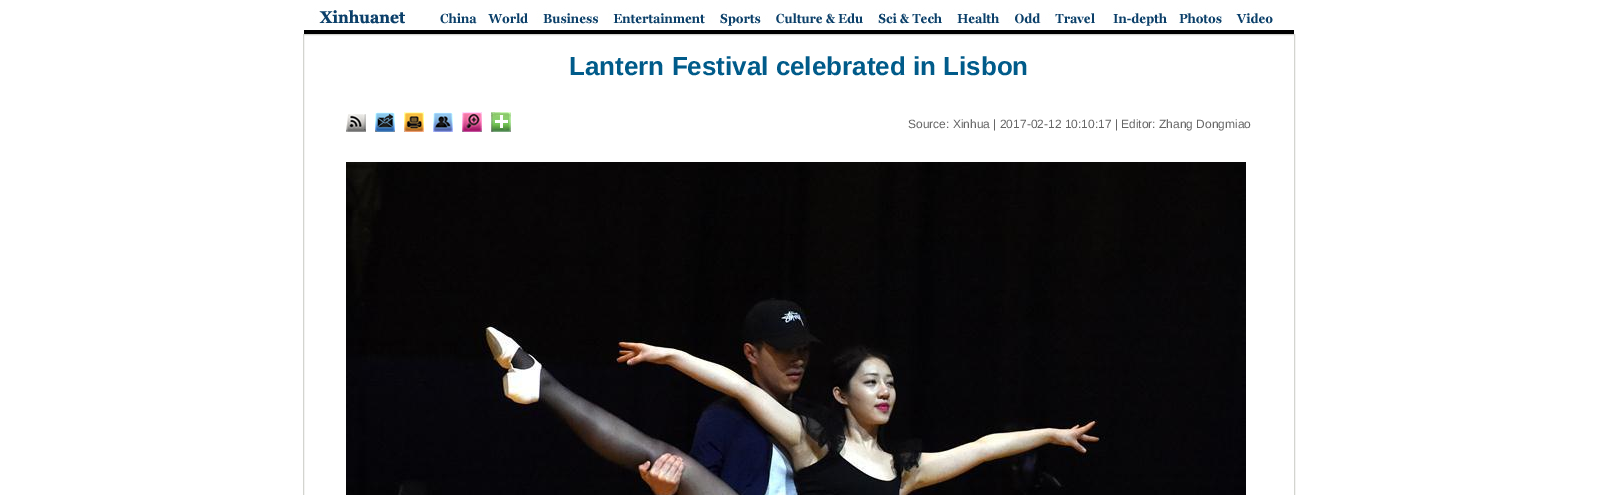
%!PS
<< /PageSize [1597 495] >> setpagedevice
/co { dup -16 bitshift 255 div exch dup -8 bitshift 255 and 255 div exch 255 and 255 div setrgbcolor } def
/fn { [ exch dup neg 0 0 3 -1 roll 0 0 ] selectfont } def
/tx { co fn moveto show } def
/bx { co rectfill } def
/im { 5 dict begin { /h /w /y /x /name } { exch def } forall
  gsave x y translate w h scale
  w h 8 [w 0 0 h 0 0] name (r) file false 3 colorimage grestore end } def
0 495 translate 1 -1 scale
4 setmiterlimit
0 0 1597 495 16#FFFFFF bx
304 30 990 4 16#000000 bx
(media/1.raw) 304 0 990 30 im
16#D3D4CF co
303.5 34.5 991 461 rectstroke
(media/2.raw) 346 114 20 18 im
(media/3.raw) 375 112 20 20 im
(media/4.raw) 404 112 20 20 im
(media/5.raw) 433 112 20 20 im
(media/6.raw) 462 112 20 20 im
(media/7.raw) 491 112 20 20 im
(media/8.raw) 346 162 900 333 im
(Lantern Festival celebrated in Lisbon) 569 75 /LiberationSans-Bold 26 16#005B8A tx
(Source: Xinhua | 2017-02-12 10:10:17 | Editor: Zhang Dongmiao) 908 128 /LiberationSans-Regular 12 16#666666 tx
showpage
